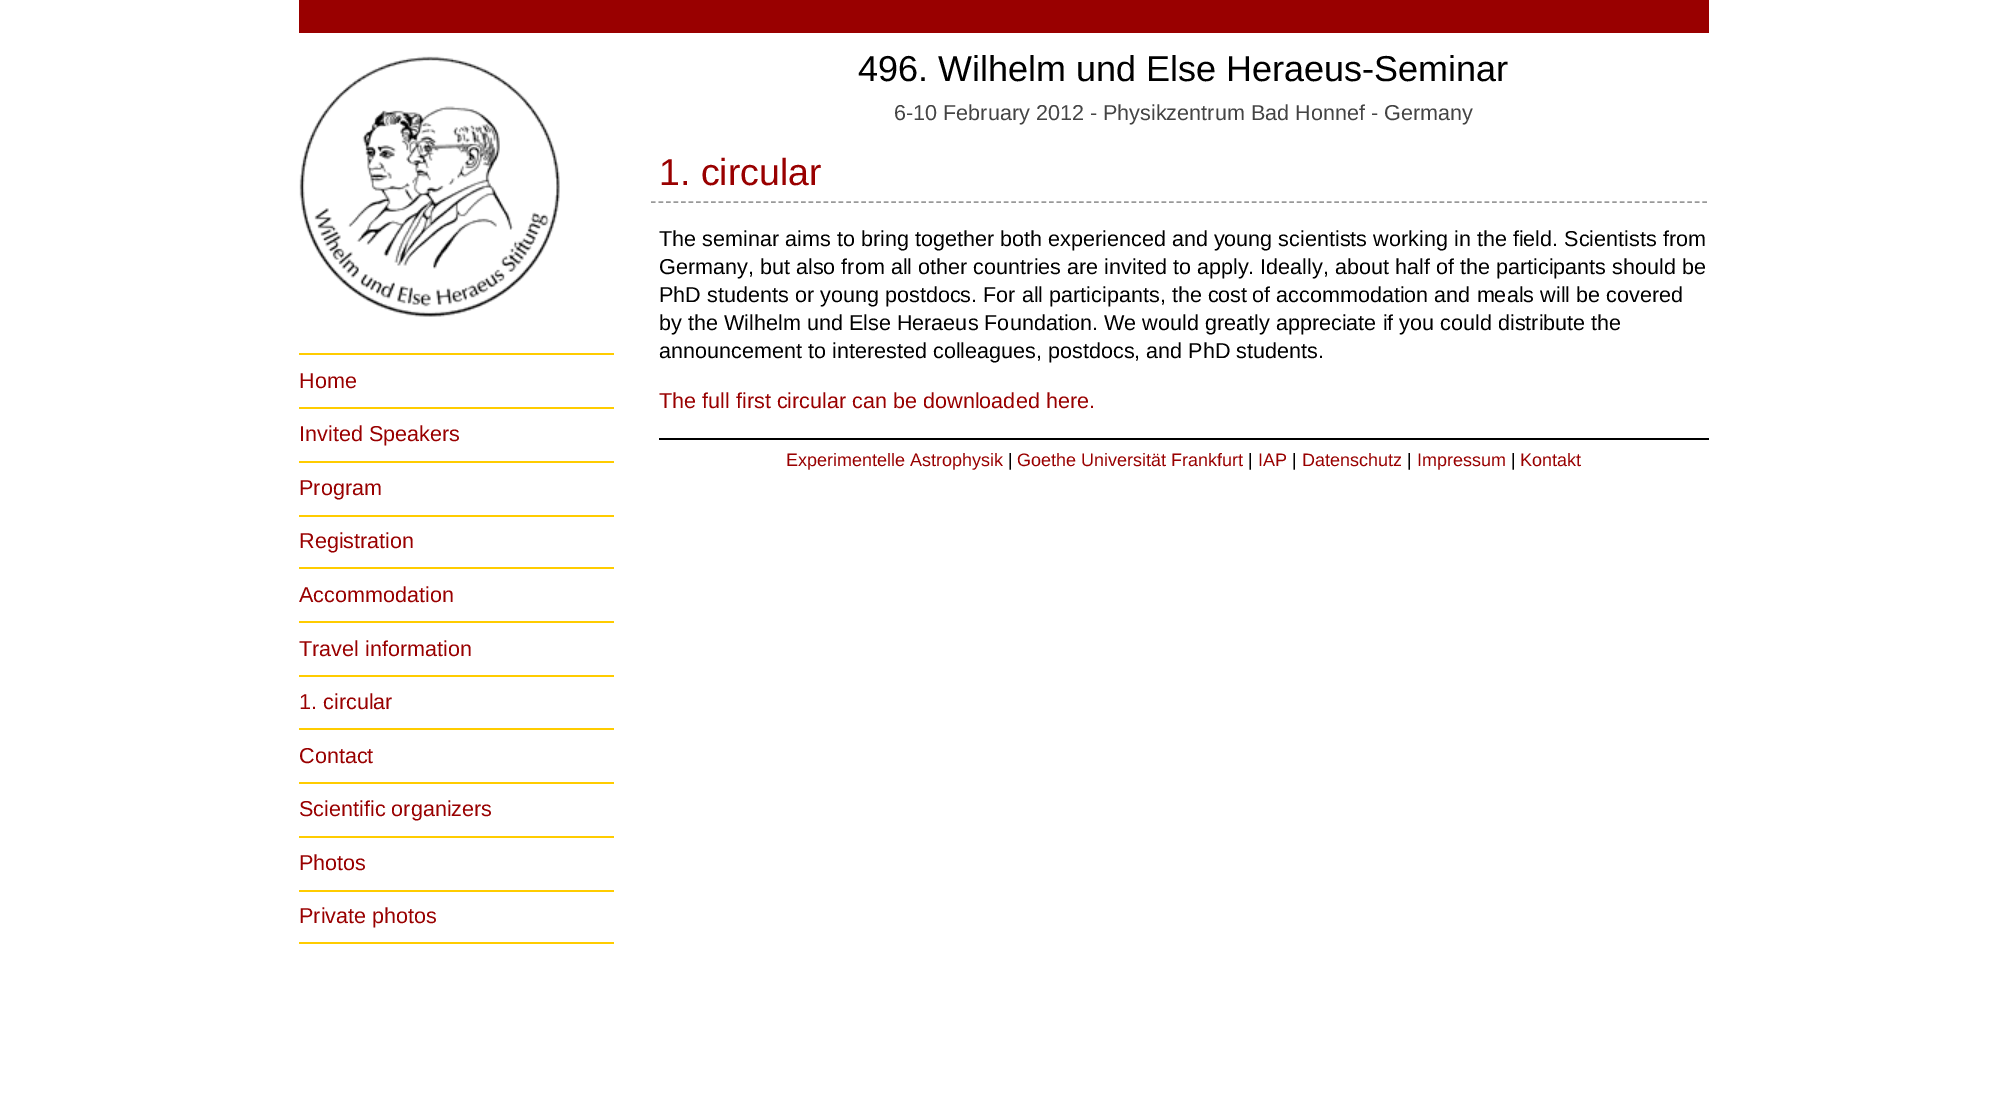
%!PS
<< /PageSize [2007 1095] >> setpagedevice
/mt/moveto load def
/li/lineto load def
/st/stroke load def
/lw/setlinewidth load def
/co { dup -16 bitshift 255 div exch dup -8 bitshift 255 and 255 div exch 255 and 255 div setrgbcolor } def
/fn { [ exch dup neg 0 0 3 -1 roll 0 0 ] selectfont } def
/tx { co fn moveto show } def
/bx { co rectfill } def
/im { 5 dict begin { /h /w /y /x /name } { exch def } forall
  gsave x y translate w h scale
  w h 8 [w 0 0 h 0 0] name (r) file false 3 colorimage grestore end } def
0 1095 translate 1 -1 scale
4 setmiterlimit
0 0 2007 1095 16#FFFFFF bx
299 0 1410 33 16#990000 bx
16#999999 co
1.5 lw
[4.5 3.01] 0 setdash
651 202 mt 1708.5 202 li st
659 438 1050 2 16#000000 bx
(media/1.raw) 299 56 261 261 im
299 353 315 2 16#FFCC00 bx
299 407 315 2 16#FFCC00 bx
299 461 315 2 16#FFCC00 bx
299 515 315 2 16#FFCC00 bx
299 567 315 2 16#FFCC00 bx
299 621 315 2 16#FFCC00 bx
299 675 315 2 16#FFCC00 bx
299 728 315 2 16#FFCC00 bx
299 782 315 2 16#FFCC00 bx
299 836 315 2 16#FFCC00 bx
299 890 315 2 16#FFCC00 bx
299 942 315 2 16#FFCC00 bx
(496. Wilhelm und Else Heraeus-Seminar) 858 81 /LiberationSans-Regular 36 16#000000 tx
(6-10 February 2012 - Physikzentrum Bad Honnef - Germany) 894 120 /LiberationSans-Regular 21.6 16#444444 tx
(1. circular) 659 185 /LiberationSans-Regular 37.5 16#990000 tx
(The seminar aims to bring together both experienced and young scientists working in the field. Scientists from) 659 246 /LiberationSans-Regular 21.6 16#000000 tx
(Germany, but also from all other countries are invited to apply. Ideally, about half of the participants should be) 659 274 /LiberationSans-Regular 21.6 16#000000 tx
(PhD students or young postdocs. For all participants, the cost) 659 302 /LiberationSans-Regular 21.6 16#000000 tx
(of accommodation and meals will be covered) 1252 302 /LiberationSans-Regular 21.6 16#000000 tx
(by the Wilhelm und Else Heraeus Foundation.) 659 330 /LiberationSans-Regular 21.6 16#000000 tx
(We would greatly appreciate if you could distribute the) 1104 330 /LiberationSans-Regular 21.6 16#000000 tx
(announcement to interested colleagues, postdocs, and PhD students.) 659 358 /LiberationSans-Regular 21.6 16#000000 tx
(The full first circular can be downloaded here.) 659 408 /LiberationSans-Regular 21.6 16#990000 tx
(Experimentelle Astrophysik) 786 466 /LiberationSans-Regular 18 16#990000 tx
(|) 1008 466 /LiberationSans-Regular 18 16#000000 tx
(Goethe Universität Frankfurt) 1017 466 /LiberationSans-Regular 18 16#990000 tx
(|) 1248 466 /LiberationSans-Regular 18 16#000000 tx
(IAP) 1258 466 /LiberationSans-Regular 18 16#990000 tx
(|) 1292 466 /LiberationSans-Regular 18 16#000000 tx
(Datenschutz) 1302 466 /LiberationSans-Regular 18 16#990000 tx
(|) 1407 466 /LiberationSans-Regular 18 16#000000 tx
(Impressum) 1417 466 /LiberationSans-Regular 18 16#990000 tx
(|) 1511 466 /LiberationSans-Regular 18 16#000000 tx
(Kontakt) 1520 466 /LiberationSans-Regular 18 16#990000 tx
(Home) 299 388 /LiberationSans-Regular 21.6 16#990000 tx
(Invited Speakers) 299 441 /LiberationSans-Regular 21.6 16#990000 tx
(Program) 299 495 /LiberationSans-Regular 21.6 16#990000 tx
(Registration) 299 548 /LiberationSans-Regular 21.6 16#990000 tx
(Accommodation) 299 602 /LiberationSans-Regular 21.6 16#990000 tx
(Travel information) 299 656 /LiberationSans-Regular 21.6 16#990000 tx
(1. circular) 299 709 /LiberationSans-Regular 21.6 16#990000 tx
(Contact) 299 763 /LiberationSans-Regular 21.6 16#990000 tx
(Scientific organizers) 299 816 /LiberationSans-Regular 21.6 16#990000 tx
(Photos) 299 870 /LiberationSans-Regular 21.6 16#990000 tx
(Private photos) 299 923 /LiberationSans-Regular 21.6 16#990000 tx
showpage
